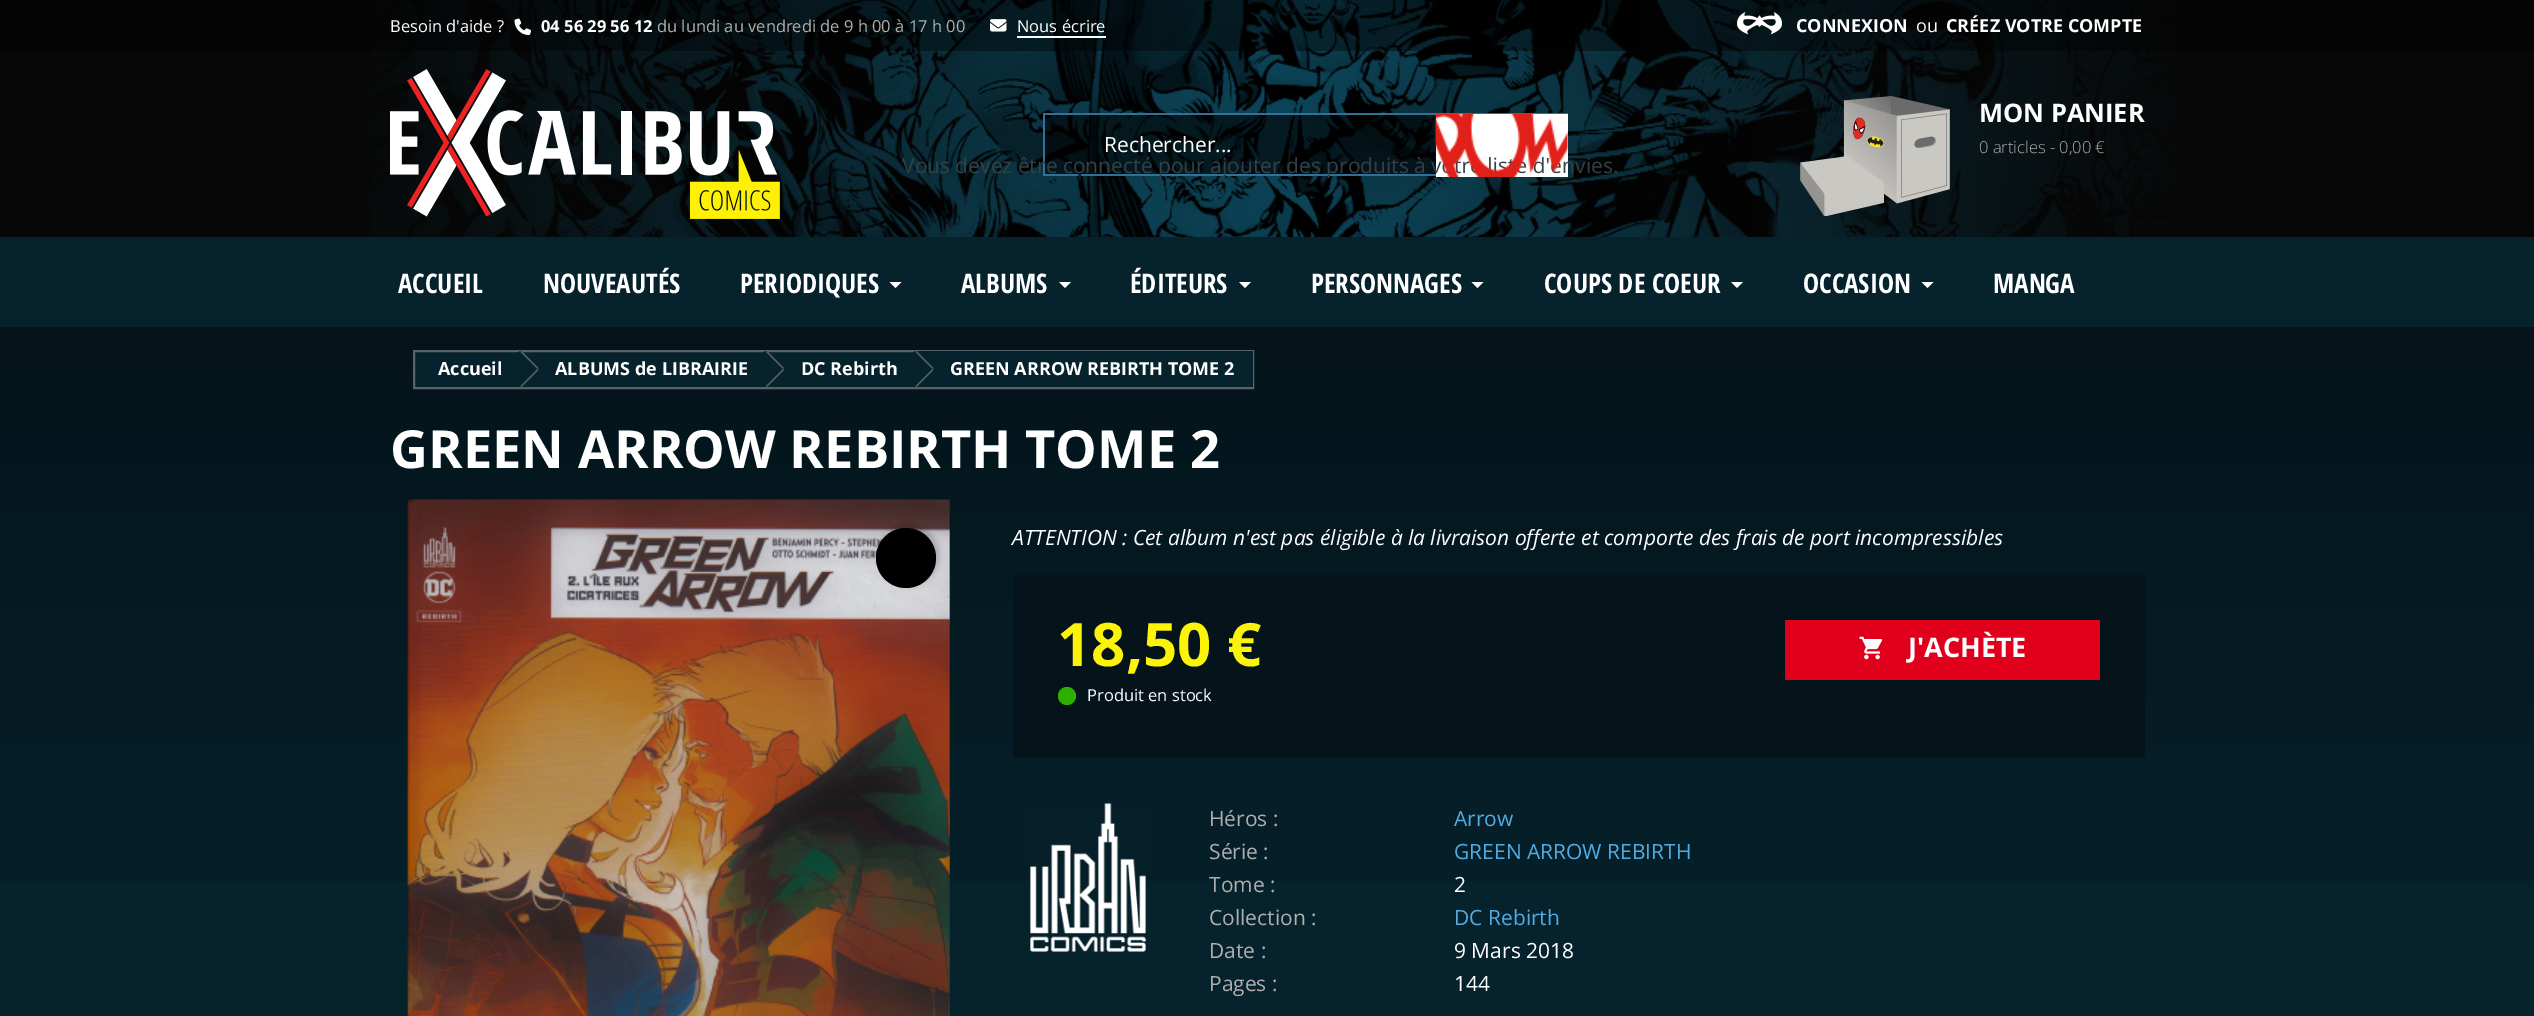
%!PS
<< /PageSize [2534 1016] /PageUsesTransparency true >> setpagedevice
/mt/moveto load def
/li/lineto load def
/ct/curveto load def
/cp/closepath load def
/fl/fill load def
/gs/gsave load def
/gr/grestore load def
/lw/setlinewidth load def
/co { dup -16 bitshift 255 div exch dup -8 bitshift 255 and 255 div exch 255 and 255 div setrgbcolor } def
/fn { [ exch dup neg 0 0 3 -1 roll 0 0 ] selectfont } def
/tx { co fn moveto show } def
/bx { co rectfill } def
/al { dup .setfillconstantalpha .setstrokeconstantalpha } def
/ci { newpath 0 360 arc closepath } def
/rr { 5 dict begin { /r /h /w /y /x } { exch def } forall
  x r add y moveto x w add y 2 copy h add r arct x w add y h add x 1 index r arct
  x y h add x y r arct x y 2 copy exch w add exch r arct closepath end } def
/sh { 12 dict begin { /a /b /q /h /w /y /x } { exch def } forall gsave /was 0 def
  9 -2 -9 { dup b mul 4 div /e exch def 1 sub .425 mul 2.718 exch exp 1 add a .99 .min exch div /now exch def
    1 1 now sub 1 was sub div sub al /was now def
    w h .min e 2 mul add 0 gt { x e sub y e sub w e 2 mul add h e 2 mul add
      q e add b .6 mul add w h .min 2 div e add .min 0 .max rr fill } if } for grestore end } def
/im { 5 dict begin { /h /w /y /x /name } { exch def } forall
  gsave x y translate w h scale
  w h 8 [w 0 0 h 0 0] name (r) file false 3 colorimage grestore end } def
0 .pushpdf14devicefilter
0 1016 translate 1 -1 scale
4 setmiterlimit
0 0 2534 1016 16#06222C bx
0 0 2534 237 16#070707 bx
(media/1.raw) 370 0 1806 237 im
0.4 al
0 0 2534 51 16#000000 bx
1 al
(media/2.raw) 514 18 17 18 im
(media/3.raw) 990 19 17 13 im
1017 36 89 2 16#FFFFFF bx
(media/4.raw) 1737 12 45 23 im
(media/5.raw) 390 69 390 150 im
0.6 al
1045 115 391 59 16#000000 bx
1 al
1043 113 525 2 16#2F7199 bx
1043 174 393 2 16#2F7199 bx
1043 113 2 63 16#2F7199 bx
1436 114 132 63 16#FFFFFF bx
(media/7.raw) 1800 96 150 120 im
889.5 282 mt 901.5 282 li 895.5 288 li cp fl
1059 282 mt 1071 282 li 1065 288 li cp fl
1239 282 mt 1251 282 li 1245 288 li cp fl
1471.5 282 mt 1483.5 282 li 1477.5 288 li cp fl
1731 282 mt 1743 282 li 1737 288 li cp fl
1921.5 282 mt 1933.5 282 li 1927.5 288 li cp fl
gs 0 327 mt 2534 327 li 2534 882 li 0 882 li cp clip newpath
<< /ShadingType 2 /ColorSpace /DeviceRGB /Coords [1268 327 1268 972] /Extend [true true] /Function << /FunctionType 2 /Domain [0 1] /C0 [.016 .078 .102] /C1 [.024 .133 .173] /N 1 >> >> shfill gr
415 352 502 35 16#06222C bx
16#5A6265 co
2 lw
414 351 839 37 rectstroke
16#06222C co
522.5 352 mt 537.5 367 li 538.5 368 538.5 370 537.5 371 ct 522.5 386 li 521.5 387 519.5 387 518.5 386 ct 503.5 371 li 502 370 502 368 503.5 367 ct 518.5 352 li 519.5 351 521.5 351 522.5 352 ct cp fl
16#5A6265 co
521.5 351 mt 538.5 368 li 537.5 369 li 520.5 352 li cp 537.5 369 mt 538.5 370 li 521.5 387 li 520.5 386 li cp fl
16#06222C co
768 352 mt 783 367 li 784 368 784 370 783 371 ct 768 386 li 767 387 765 387 764 386 ct 749 371 li 748 370 748 368 749 367 ct 764 352 li 765 351 767 351 768 352 ct cp fl
16#5A6265 co
767 351 mt 784 368 li 783 369 li 766 352 li cp 783 369 mt 784 370 li 767 387 li 766 386 li cp fl
917 351 336 36 16#06222C bx
917.5 352 mt 932.5 367 li 933.5 368 933.5 370 932.5 371 ct 917.5 386 li 916.5 387 914.5 387 913.5 386 ct 898.5 371 li 897.5 370 897.5 368 898.5 367 ct 913.5 352 li 914.5 351 916.5 351 917.5 352 ct cp fl
16#5A6265 co
916.5 351 mt 933.5 368 li 932.5 369 li 915.5 352 li cp 932.5 369 mt 933.5 370 li 916.5 387 li 915.5 386 li cp fl
(media/8.raw) 407 499 543 517 im
16#000000 co
879 525 60 60 30 3 .2 sh
906 558 30 ci fl
1013 575 1132 183 16#04141A bx
16#2DAF00 co
1067 696 9 ci fl
1785 620 315 60 16#E0001C bx
(media/9.raw) 1859 636 24 24 im
(media/10.raw) 1030 803 116 149 im
(Besoin d'aide ?) 390 32 /OpenSans-Regular 16.5 16#FFFFFF tx
(04 56 29 56 12) 541 32 /OpenSans-Bold 16.5 16#FFFFFF tx
(du lundi au vendredi de 9 h 00 à 17 h 00) 657 32 /OpenSans-Regular 16.5 16#AEAEAE tx
(Nous écrire) 1017 32 /OpenSans-Regular 16.5 16#FFFFFF tx
(CONNEXION) 1796 32 /OpenSans-Bold 18 16#FFFFFF tx
(ou) 1916 32 /OpenSans-Regular 18 16#FFFFFF tx
(CRÉEZ VOTRE COMPTE) 1946 32 /OpenSans-Bold 18 16#FFFFFF tx
(Rechercher...) 1104 152 /OpenSans-Regular 21 16#FFFFFF tx
(MON PANIER) 1979 122 /OpenSans-Bold 25.5 16#FFFFFF tx
(0 articles - 0,00 €) 1979 153 /OpenSans-Light 16.5 16#AEAEAE tx
(ACCUEIL) 398 293 /OpenSansCondensed-Bold 27 16#FFFFFF tx
(NOUVEAUTÉS) 543 293 /OpenSansCondensed-Bold 27 16#FFFFFF tx
(PERIODIQUES) 740 293 /OpenSansCondensed-Bold 27 16#FFFFFF tx
(ALBUMS) 961 293 /OpenSansCondensed-Bold 27 16#FFFFFF tx
(ÉDITEURS) 1130 293 /OpenSansCondensed-Bold 27 16#FFFFFF tx
(PERSONNAGES) 1311 293 /OpenSansCondensed-Bold 27 16#FFFFFF tx
(COUPS DE COEUR) 1544 293 /OpenSansCondensed-Bold 27 16#FFFFFF tx
(OCCASION) 1803 293 /OpenSansCondensed-Bold 27 16#FFFFFF tx
(MANGA) 1993 293 /OpenSansCondensed-Bold 27 16#FFFFFF tx
(r) 1461 173 /OpenSans-Regular 21 16#334146 tx
(d'envies.) 1533 173 /OpenSans-Regular 21 16#334146 tx
(l) 1098 173 /OpenSans-Regular 21 16#05171D tx
(') 1077 189 /OpenSans-Bold 21 16#08252F tx
(Vous devez être connecté pour ajouter des produits à v) 902 173 /OpenSans-Regular 21 16#334146 tx
(media/6.raw) 1435 114 133 63 im
(Accueil) 438 375 /OpenSans-Bold 18 16#FFFFFF tx
(ALBUMS de LIBRAIRIE) 555 375 /OpenSans-Bold 18 16#FFFFFF tx
(DC Rebirth) 801 375 /OpenSans-Bold 18 16#FFFFFF tx
(GREEN ARROW REBIRTH TOME 2) 950 375 /OpenSans-Bold 18 16#FFFFFF tx
(GREEN ARROW REBIRTH TOME 2) 390 468 /OpenSans-Bold 52.5 16#FFFFFF tx
(ATTENTION : Cet album n'est pas éligible à la livraison offerte et comporte des frais de port incompressibles) 1012 545 /OpenSans-Italic 21 16#FFFFFF tx
(18,50 €) 1057 666 /OpenSans-Bold 60 16#FCF408 tx
(Produit en stock) 1087 701 /OpenSans-Regular 16.5 16#FFFFFF tx
(J'ACHÈTE) 1908 657 /OpenSans-Bold 27 16#FFFFFF tx
(Héros :) 1209 826 /OpenSans-Regular 21 16#AEAEAE tx
(Arrow) 1454 826 /OpenSans-Regular 21 16#50ACE3 tx
(Série :) 1209 859 /OpenSans-Regular 21 16#AEAEAE tx
(GREEN ARROW REBIRTH) 1454 859 /OpenSans-Regular 21 16#50ACE3 tx
(Tome :) 1209 892 /OpenSans-Regular 21 16#AEAEAE tx
(2) 1454 892 /OpenSans-Regular 21 16#FFFFFF tx
(Collection :) 1209 925 /OpenSans-Regular 21 16#AEAEAE tx
(DC Rebirth) 1454 925 /OpenSans-Regular 21 16#50ACE3 tx
(Date :) 1209 958 /OpenSans-Regular 21 16#AEAEAE tx
(9 Mars 2018) 1454 958 /OpenSans-Regular 21 16#FFFFFF tx
(Pages :) 1209 991 /OpenSans-Regular 21 16#AEAEAE tx
(144) 1454 991 /OpenSans-Regular 21 16#FFFFFF tx
.poppdf14devicefilter showpage
